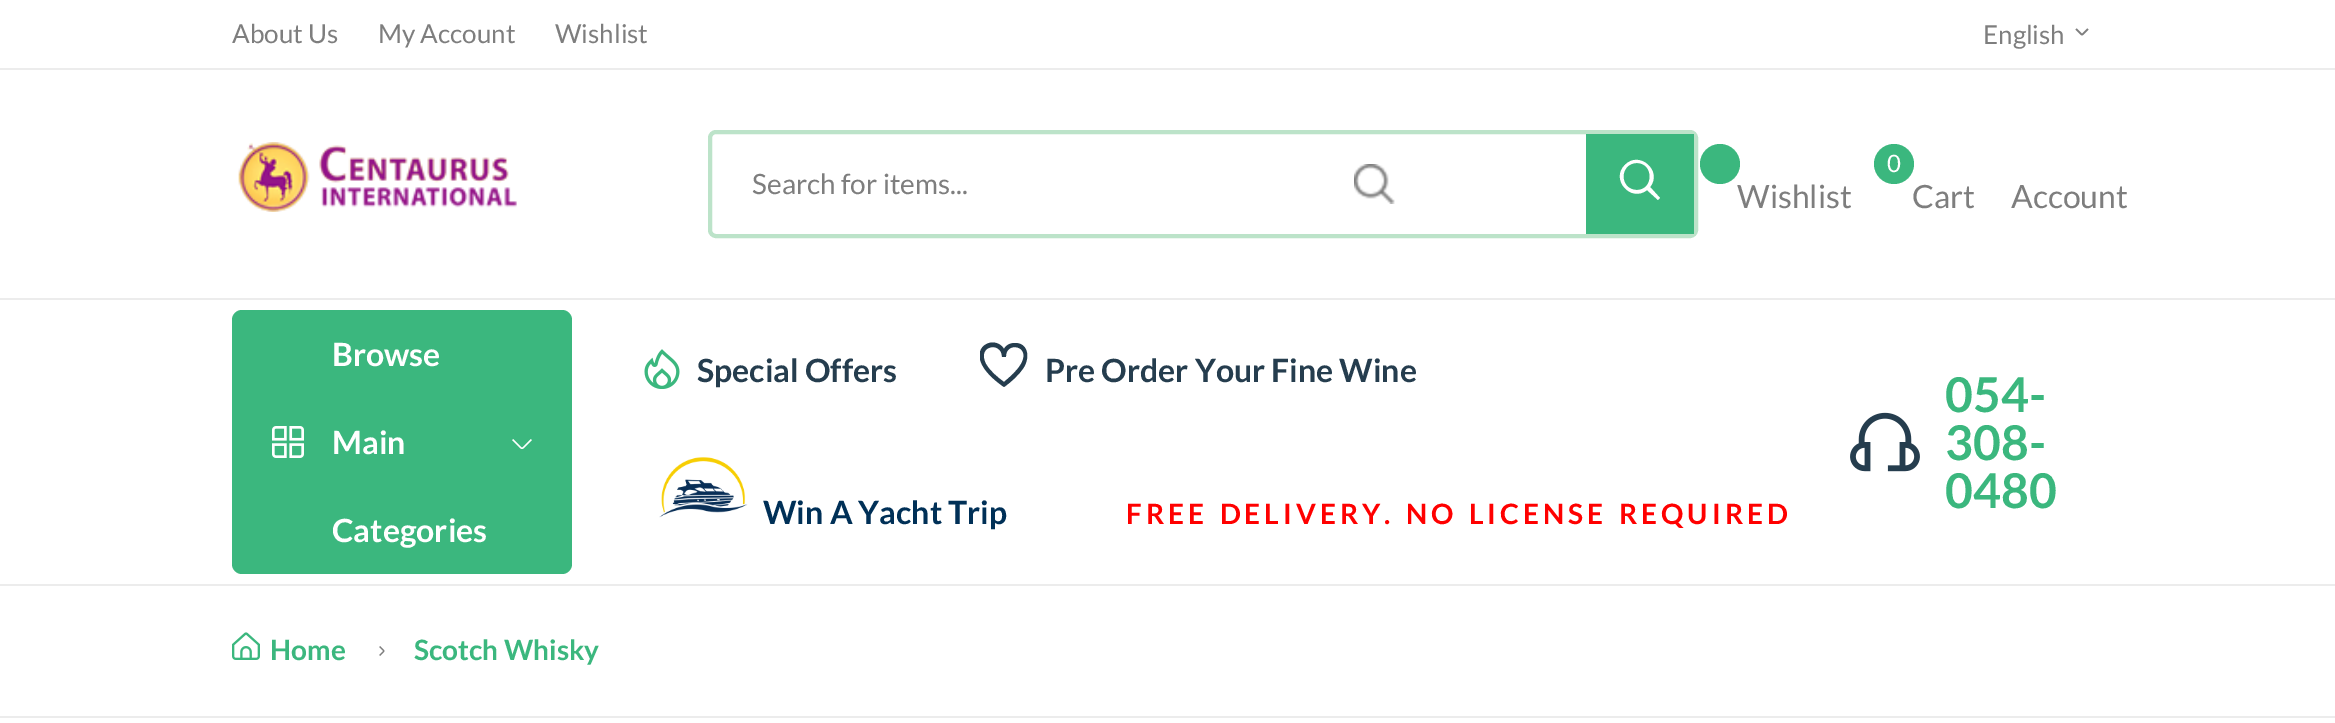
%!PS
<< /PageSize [2335 723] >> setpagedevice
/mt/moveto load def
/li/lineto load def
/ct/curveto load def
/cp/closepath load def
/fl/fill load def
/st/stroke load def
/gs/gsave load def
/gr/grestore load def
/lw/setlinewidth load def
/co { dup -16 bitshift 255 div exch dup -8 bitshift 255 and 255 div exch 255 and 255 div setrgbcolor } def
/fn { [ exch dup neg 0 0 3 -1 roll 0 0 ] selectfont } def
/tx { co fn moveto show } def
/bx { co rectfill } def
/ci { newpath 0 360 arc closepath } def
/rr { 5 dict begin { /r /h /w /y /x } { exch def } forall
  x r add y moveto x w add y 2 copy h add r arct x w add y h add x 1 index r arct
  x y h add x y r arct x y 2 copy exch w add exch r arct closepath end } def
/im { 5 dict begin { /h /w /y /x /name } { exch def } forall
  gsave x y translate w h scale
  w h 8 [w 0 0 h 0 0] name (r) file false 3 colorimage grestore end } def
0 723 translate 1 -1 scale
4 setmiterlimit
0 0 2335 723 16#FFFFFF bx
0 68 2335 2 16#ECECEC bx
(media/1.raw) 2075 28 14 8 im
(media/2.raw) 238 142 279 70 im
16#BCE3C9 co
4 lw
710 132 986 104 6 rr st
(media/3.raw) 1354 164 41 40 im
1586 134 108 100 16#3BB77E bx
16#FFFFFF co
1660 198 mt 1650 187 li 1663 171 1639 150 1625 165 ct 1610 179 1631 203 1647 190 ct 1658 200 li cp 1637 190 mt 1619 190 1619 163 1637 163 ct 1654 163 1654 190 1637 190 ct cp fl
16#3BB77E co
1720 164 20 ci fl
1894 164 20 ci fl
0 298 2335 2 16#ECECEC bx
0 584 2335 2 16#ECECEC bx
16#3BB77E co
232 310 340 264 10 rr fl
(media/4.raw) 272 426 32 32 im
(media/5.raw) 512 439 20 10 im
(media/6.raw) 644 349 36 40 im
gs
980 341 48 48 rectclip
16#253D4E co
1015 343 mt 1010 343 1006 345 1004 349 ct 993 331 955 353 1004 387 ct 1011 382 1019 375 1024 367 ct 1030 357 1028 343 1015 343 ct cp 1004 382 mt 997 377 990 371 986 364 ct 976 345 1002 341 1002 357 ct 1006 357 li 1005 341 1032 345 1021 364 ct 1017 371 1010 377 1004 382 ct cp fl
gr
(media/7.raw) 659 457 89 61 im
(media/8.raw) 1850 412 70 60 im
0 716 2335 2 16#ECECEC bx
(media/9.raw) 232 632 28 28 im
(media/10.raw) 379 646 6 10 im
(About Us) 232 43 /Lato-Regular 26 16#7E7E7E tx
(My Account) 378 43 /Lato-Regular 26 16#7E7E7E tx
(Wishlist) 555 43 /Lato-Regular 26 16#7E7E7E tx
(English) 1983 44 /Lato-Regular 26 16#7E7E7E tx
(Search for items...) 752 194 /Lato-Regular 28 16#7E7E7E tx
(Wishlist) 1737 208 /Lato-Regular 32 16#7E7E7E tx
(0) 1887 172 /Lato-Regular 24 16#FFFFFF tx
(Cart) 1912 208 /Lato-Regular 32 16#7E7E7E tx
(Account) 2011 208 /Lato-Regular 32 16#7E7E7E tx
(Browse) 332 366 /Lato-Bold 32 16#FFFFFF tx
(Main) 332 454 /Lato-Bold 32 16#FFFFFF tx
(Categories) 332 542 /Lato-Bold 32 16#FFFFFF tx
(Special Offers) 697 382 /Lato-Bold 32 16#253D4E tx
(Pre Order Your Fine Wine) 1045 382 /Lato-Bold 32 16#253D4E tx
(Win A Yacht Trip) 763 524 /Lato-Bold 32 16#003057 tx
/Lato-Bold 28 fn
16#FF0000 co
1126 524 mt 2 0 32 4 0 (FREE DELIVERY. NO LICENSE REQUIRED) awidthshow
(054-) 1945 412 /Lato-Bold 48 16#3BB77E tx
(308-) 1945 460 /Lato-Bold 48 16#3BB77E tx
(0480) 1945 508 /Lato-Bold 48 16#3BB77E tx
(Home) 270 660 /Lato-Bold 28 16#3BB77E tx
(Scotch Whisky) 414 660 /Lato-Bold 28 16#3BB77E tx
showpage
